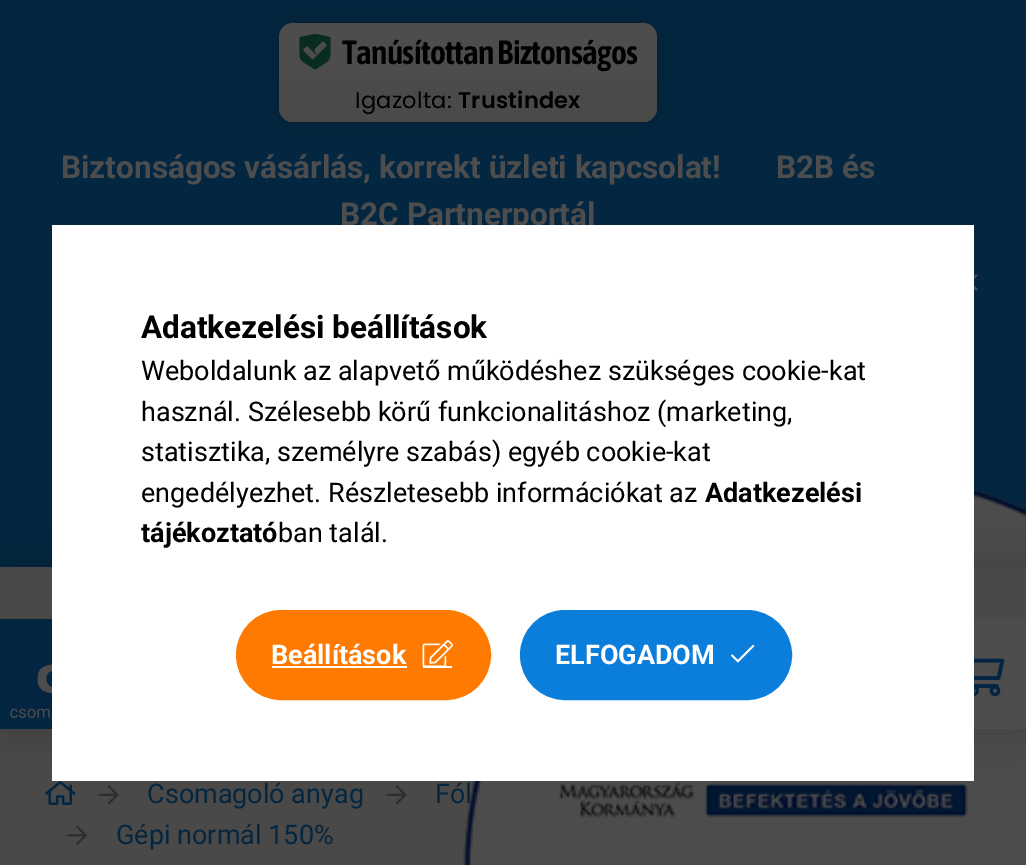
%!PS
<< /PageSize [1026 865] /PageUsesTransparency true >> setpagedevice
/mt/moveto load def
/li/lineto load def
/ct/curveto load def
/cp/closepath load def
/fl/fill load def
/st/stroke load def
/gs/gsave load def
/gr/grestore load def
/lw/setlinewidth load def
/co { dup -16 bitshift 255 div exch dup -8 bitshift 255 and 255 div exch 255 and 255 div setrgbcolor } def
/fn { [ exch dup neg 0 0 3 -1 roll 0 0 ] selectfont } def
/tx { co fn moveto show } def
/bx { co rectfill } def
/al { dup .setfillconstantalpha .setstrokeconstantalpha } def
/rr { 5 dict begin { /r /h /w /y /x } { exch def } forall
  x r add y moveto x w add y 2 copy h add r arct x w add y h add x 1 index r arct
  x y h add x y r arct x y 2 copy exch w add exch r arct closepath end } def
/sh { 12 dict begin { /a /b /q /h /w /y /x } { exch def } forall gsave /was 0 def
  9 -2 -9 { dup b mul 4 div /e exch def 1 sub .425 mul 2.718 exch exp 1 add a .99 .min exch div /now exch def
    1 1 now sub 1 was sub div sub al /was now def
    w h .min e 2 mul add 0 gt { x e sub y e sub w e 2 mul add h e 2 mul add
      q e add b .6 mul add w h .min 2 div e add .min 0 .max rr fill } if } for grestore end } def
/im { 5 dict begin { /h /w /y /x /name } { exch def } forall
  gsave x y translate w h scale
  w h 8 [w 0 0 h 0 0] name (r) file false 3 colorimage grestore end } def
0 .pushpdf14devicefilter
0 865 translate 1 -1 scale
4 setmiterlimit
0 0 1026 865 16#4A4948 bx
0 0 1026 567 16#032641 bx
16#000000 co
279 23 378 99 14 1 .2 sh
279 23 378 99 14 9 .2 sh
16#4D4D4D co
279 23 378 99 14 rr fl
(media/1.raw) 299 34 32 36 im
16#4A4A48 co
279 81 mt 657 81 li 657 108 li 657 115.5 650.5 122 643 122 ct 293 122 li 285.5 122 279 115.5 279 108 ct cp fl
(media/2.raw) 974 274 4 17 im
(media/5.raw) 45 781 31 24 im
(media/6.raw) 99 785 20 20 im
(media/6.raw) 387 785 20 20 im
(media/7.raw) 67 825 21 20 im
/AsapCondensed-SemiBold 33.75 fn
16#000000 co
342 64 mt -.7 0 (Tanúsítottan Biztonságos) ashow
/Poppins-Regular 22.5 fn
355 108 mt .25 0 (Igazolta:) ashow
/Poppins-SemiBold 22.5 fn
458 108 mt .25 0 (Trustindex) ashow
(Biztonságos vásárlás, korrekt üzleti kapcsolat!) 61 178 /Roboto-Bold 31.5 16#4D4D4D tx
(B2B és) 776 178 /Roboto-Bold 31.5 16#4D4D4D tx
(B2C Partnerportál) 340 225 /Roboto-Bold 31.5 16#4D4D4D tx
(Csomagoló anyag) 147 803 /Roboto-Regular 27 16#032641 tx
(Fól) 435 803 /Roboto-Regular 27 16#032641 tx
(Gépi normál 150%) 116 844 /Roboto-Regular 27 16#032641 tx
(media/10.raw) 463 487 563 378 im
16#000000 co
0 567 1026 162 0 22.5 .15 sh
0 567 1026 52 16#4A4948 bx
52 225 922 556 16#FFFFFF bx
16#0B7DDA co
521 611 270 88 44 rr gs fl gr
2 lw
st
(media/9.raw) 731 644 24 19 im
(ELFOGADOM) 555 664 /Roboto-Bold 27 16#FFFFFF tx
16#FF7A00 co
237 611 253 88 44 rr gs fl gr
st
(media/8.raw) 422 640 31 26 im
423 666 29 2 16#FFFFFF bx
(Beállítások) 271 664 /Roboto-Bold 27 16#FFFFFF tx
272 666 135 2 16#FFFFFF bx
(ban talál.) 278 542 /Roboto-Regular 27 16#000000 tx
(tájékoztató) 141 542 /Roboto-Bold 27 16#000000 tx
(Adatkezelési) 705 502 /Roboto-Bold 27 16#000000 tx
(engedélyezhet. Részletesebb információkat az) 141 502 /Roboto-Regular 27 16#000000 tx
(statisztika, személyre szabás\) egyéb cookie-kat) 141 461 /Roboto-Regular 27 16#000000 tx
(használ. Szélesebb körű funkcionalitáshoz \(marketing,) 141 421 /Roboto-Regular 27 16#000000 tx
(Weboldalunk az alapvető működéshez szükséges cookie-kat) 141 380 /Roboto-Regular 27 16#000000 tx
(Adatkezelési beállítások) 141 338 /Roboto-Bold 31.5 16#000000 tx
0 619 52 110 16#032641 bx
(media/3.raw) 10 664 42 54 im
974 619 52 110 16#4D4D4D bx
(media/4.raw) 974 658 31 39 im
.poppdf14devicefilter showpage
